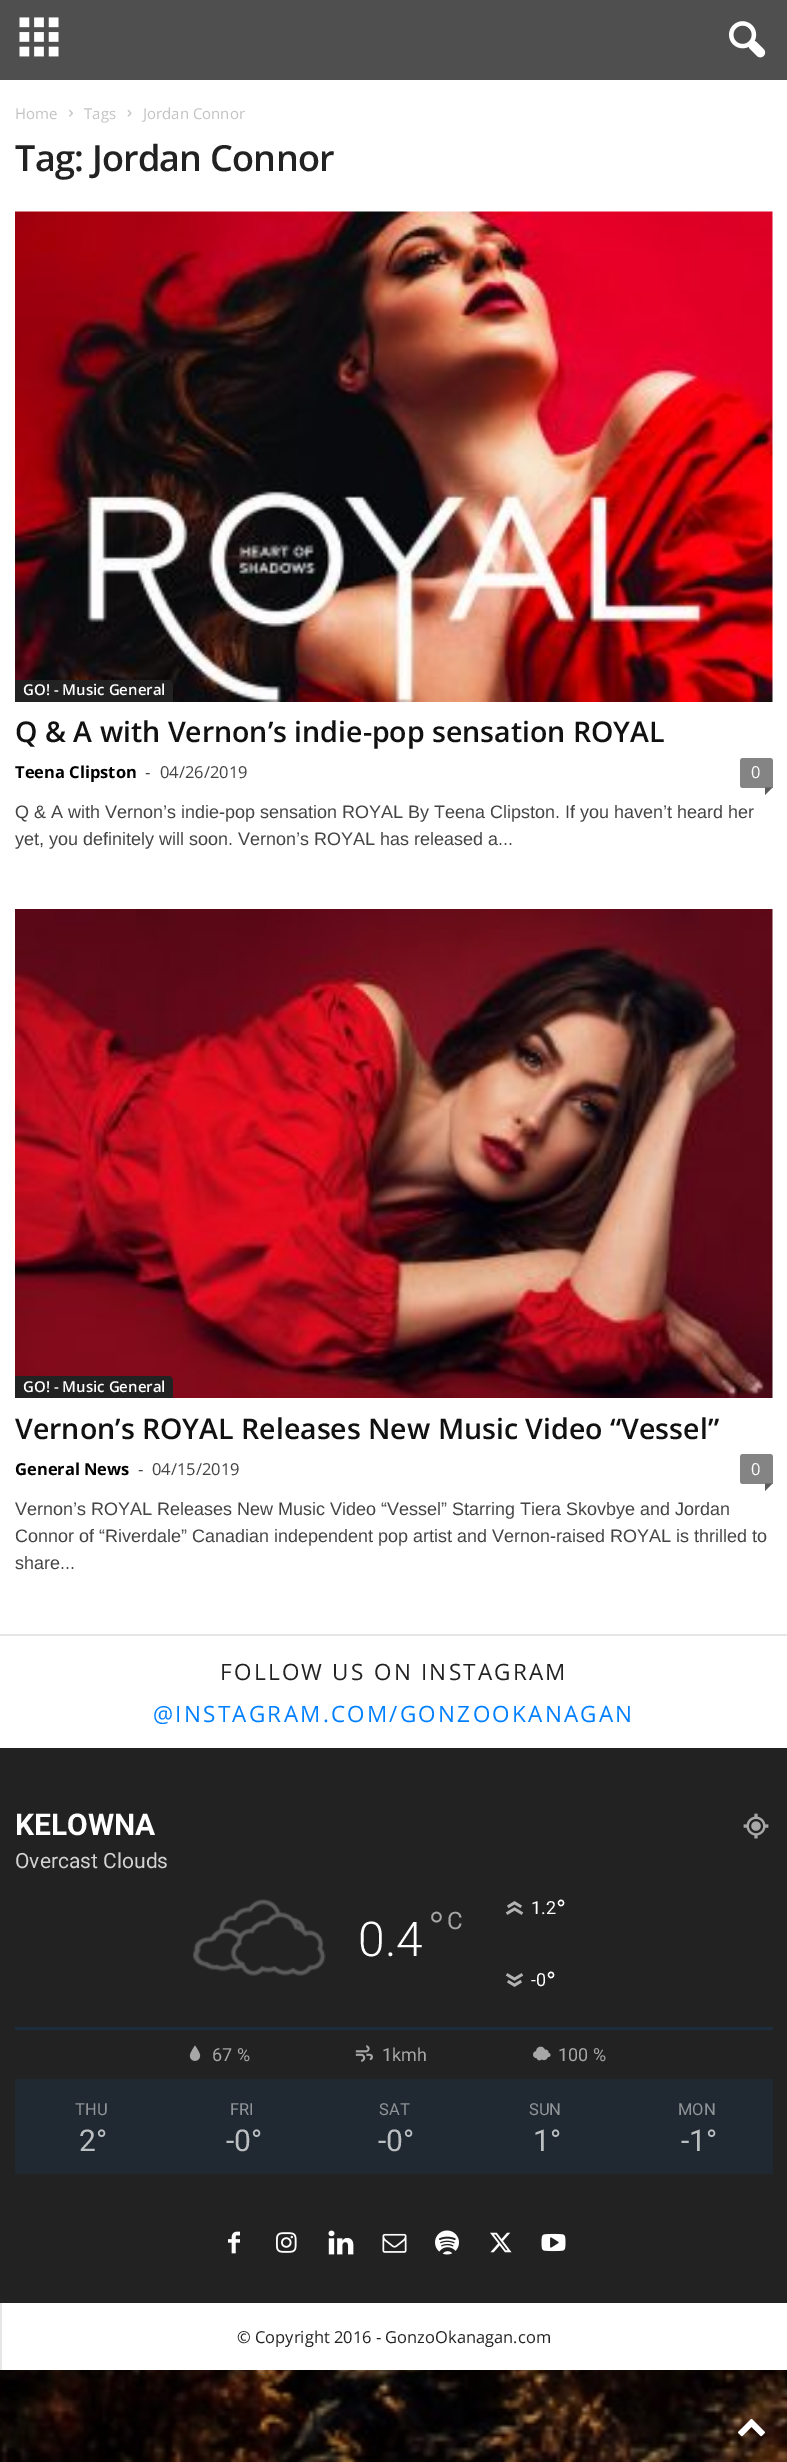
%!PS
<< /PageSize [787 2462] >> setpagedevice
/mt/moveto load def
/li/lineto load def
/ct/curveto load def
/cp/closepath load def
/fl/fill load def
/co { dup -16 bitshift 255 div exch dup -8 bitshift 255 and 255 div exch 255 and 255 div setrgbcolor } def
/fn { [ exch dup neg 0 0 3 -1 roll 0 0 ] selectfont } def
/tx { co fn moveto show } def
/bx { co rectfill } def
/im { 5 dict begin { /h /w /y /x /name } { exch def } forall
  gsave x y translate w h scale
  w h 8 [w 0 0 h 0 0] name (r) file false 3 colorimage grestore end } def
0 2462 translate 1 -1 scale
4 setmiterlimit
0 0 787 2462 16#FFFFFF bx
0 0 787 80 16#4F4F4F bx
(media/1.raw) 19 17 40 40 im
(media/2.raw) 729 21 37 37 im
0 1634 787 2 16#E6E6E6 bx
(media/3.raw) 69 109 4 8 im
(media/4.raw) 127 109 5 8 im
(media/5.raw) 15 211 758 491 im
16#222222 co
15 680 mt 168 680 li 171 680 173 682 173 685 ct 173 702 li 15 702 li cp fl
16#848484 co
743 758 mt 770 758 li 771.5 758 773 759.5 773 761 ct 773 788 li 743 788 li 741.5 788 740 786.5 740 785 ct 740 761 li 740 759.5 741.5 758 743 758 ct cp fl
16#5B5B5B co
765 787.5 mt 772.5 787.5 li 765 795 li cp fl
(media/6.raw) 15 909 758 489 im
16#222222 co
15 1376 mt 168 1376 li 171 1376 173 1378 173 1381 ct 173 1398 li 15 1398 li cp fl
16#848484 co
743 1454 mt 770 1454 li 771.5 1454 773 1455.5 773 1457 ct 773 1484 li 743 1484 li 741.5 1484 740 1482.5 740 1481 ct 740 1457 li 740 1455.5 741.5 1454 743 1454 ct cp fl
16#5B5B5B co
765 1483.5 mt 772.5 1483.5 li 765 1491 li cp fl
0 1748 787 555 16#222222 bx
(media/7.raw) 743 1813 26 26 im
(media/8.raw) 192 1899 134 77 im
(media/9.raw) 505 1901 19 14 im
(media/10.raw) 505 1973 19 14 im
15 2027 758 3 16#1E2D3D bx
(media/11.raw) 189 2045 12 16 im
(media/12.raw) 355 2045 18 17 im
(media/13.raw) 533 2046 18 15 im
15 2079 758 95 16#202931 bx
(media/14.raw) 228 2231 12 23 im
(media/15.raw) 276 2232 21 21 im
(media/16.raw) 328 2230 26 25 im
(media/17.raw) 382 2233 25 20 im
(media/18.raw) 435 2230 24 25 im
(media/19.raw) 490 2232 22 21 im
(media/20.raw) 541 2233 25 19 im
0 2303 2 67 16#E6E6E6 bx
(media/21.raw) 0 2370 787 92 im
(media/22.raw) 738 2418 27 19 im
(Home) 15 119 /OpenSans-Regular 15 16#C3C3C3 tx
(Tags) 84 119 /OpenSans-Regular 15 16#C3C3C3 tx
(Jordan Connor) 143 119 /OpenSans-Regular 15 16#C3C3C3 tx
/OpenSans-SemiBold 36 fn
16#222222 co
15 171 mt -.75 0 (Tag: Jordan Connor) ashow
(GO! - Music General) 23 695 /OpenSans-SemiBold 15 16#FFFFFF tx
(Q & A with Vernon’s indie-pop sensation ROYAL) 15 742 /OpenSans-SemiBold 28.5 16#111111 tx
(Teena Clipston) 15 778 /OpenSans-Bold 16.5 16#000000 tx
(-) 145 778 /OpenSans-Regular 16.5 16#444444 tx
(04/26/2019) 160 778 /OpenSans-Regular 16.5 16#444444 tx
(0) 751 778 /OpenSans-Regular 16.5 16#FFFFFF tx
(Q & A with Vernon’s indie-pop sensation ROYAL By Teena Clipston. If you haven’t heard her) 15 818 /LiberationSans-Regular 18 16#444444 tx
(yet, you definitely will soon. Vernon’s ROYAL has released a...) 15 845 /LiberationSans-Regular 18 16#444444 tx
(GO! - Music General) 23 1392 /OpenSans-SemiBold 15 16#FFFFFF tx
(Vernon’s ROYAL Releases New Music Video “Vessel”) 15 1439 /OpenSans-SemiBold 28.5 16#111111 tx
(General News) 15 1475 /OpenSans-Bold 16.5 16#000000 tx
(-) 138 1475 /OpenSans-Regular 16.5 16#444444 tx
(04/15/2019) 152 1475 /OpenSans-Regular 16.5 16#444444 tx
(0) 751 1475 /OpenSans-Regular 16.5 16#FFFFFF tx
(Vernon’s ROYAL Releases New Music Video “Vessel” Starring Tiera Skovbye and Jordan) 15 1515 /LiberationSans-Regular 18 16#444444 tx
(Connor of “Riverdale” Canadian independent pop artist and Vernon-raised ROYAL is thrilled to) 15 1542 /LiberationSans-Regular 18 16#444444 tx
(share...) 15 1569 /LiberationSans-Regular 18 16#444444 tx
/OpenSans-Regular 22.5 fn
16#222222 co
220 1680 mt 2.25 0 (FOLLOW US ON INSTAGRAM) ashow
16#007FFF co
153 1722 mt 2.25 0 (@INSTAGRAM.COM/GONZOOKANAGAN) ashow
(KELOWNA) 15 1835 /Roboto-Bold 30 16#FFFFFF tx
(Overcast Clouds) 15 1868 /Roboto-Regular 21 16#D3D3D3 tx
(0.4) 358 1956 /Roboto-Light 48 16#FFFFFF tx
(°) 428 1944 /Roboto-Light 45 16#A7A7A7 tx
(C) 447 1929 /Roboto-Regular 24 16#A7A7A7 tx
(1.2) 531 1914 /Roboto-Regular 18 16#FFFFFF tx
(°) 556 1919 /Roboto-Regular 27 16#FFFFFF tx
(-0) 531 1986 /Roboto-Regular 18 16#FFFFFF tx
(°) 546 1991 /Roboto-Regular 27 16#FFFFFF tx
(67 %) 212 2061 /Roboto-Regular 18 16#A7A7A7 tx
(1kmh) 382 2061 /Roboto-Regular 18 16#A7A7A7 tx
(100 %) 558 2061 /Roboto-Regular 18 16#A7A7A7 tx
(THU) 75 2115 /Roboto-Regular 16.5 16#909498 tx
(2°) 79 2151 /Roboto-Regular 30 16#BCBFC1 tx
(FRI) 230 2115 /Roboto-Regular 16.5 16#909498 tx
(-0°) 226 2151 /Roboto-Regular 30 16#BCBFC1 tx
(SAT) 379 2115 /Roboto-Regular 16.5 16#909498 tx
(-0°) 378 2151 /Roboto-Regular 30 16#BCBFC1 tx
(SUN) 529 2115 /Roboto-Regular 16.5 16#909498 tx
(1°) 533 2151 /Roboto-Regular 30 16#BCBFC1 tx
(MON) 678 2115 /Roboto-Regular 16.5 16#909498 tx
(-1°) 681 2151 /Roboto-Regular 30 16#BCBFC1 tx
(© Copyright 2016 - GonzoOkanagan.com) 237 2343 /OpenSans-Regular 16.5 16#222222 tx
showpage
